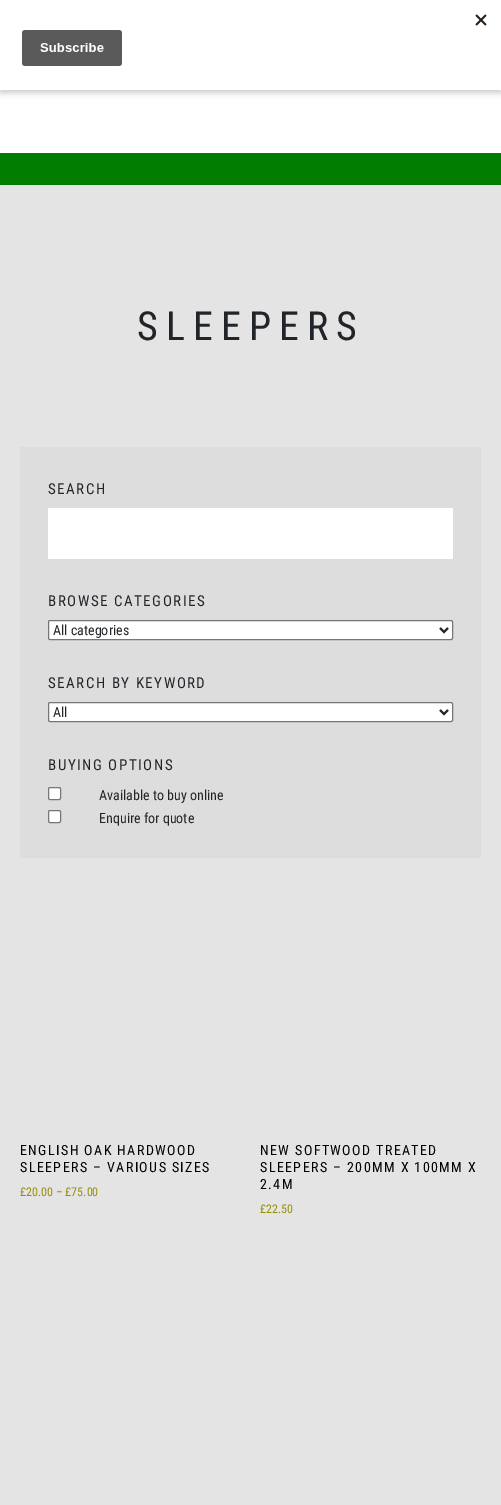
%!PS
<< /PageSize [501 1505] /PageUsesTransparency true >> setpagedevice
/mt/moveto load def
/li/lineto load def
/fl/fill load def
/st/stroke load def
/gs/gsave load def
/gr/grestore load def
/lw/setlinewidth load def
/co { dup -16 bitshift 255 div exch dup -8 bitshift 255 and 255 div exch 255 and 255 div setrgbcolor } def
/fn { [ exch dup neg 0 0 3 -1 roll 0 0 ] selectfont } def
/tx { co fn moveto show } def
/bx { co rectfill } def
/al { dup .setfillconstantalpha .setstrokeconstantalpha } def
/rr { 5 dict begin { /r /h /w /y /x } { exch def } forall
  x r add y moveto x w add y 2 copy h add r arct x w add y h add x 1 index r arct
  x y h add x y r arct x y 2 copy exch w add exch r arct closepath end } def
/sh { 12 dict begin { /a /b /q /h /w /y /x } { exch def } forall gsave /was 0 def
  9 -2 -9 { dup b mul 4 div /e exch def 1 sub .425 mul 2.718 exch exp 1 add a .99 .min exch div /now exch def
    1 1 now sub 1 was sub div sub al /was now def
    w h .min e 2 mul add 0 gt { x e sub y e sub w e 2 mul add h e 2 mul add
      q e add b .6 mul add w h .min 2 div e add .min 0 .max rr fill } if } for grestore end } def
/im { 5 dict begin { /h /w /y /x /name } { exch def } forall
  gsave x y translate w h scale
  w h 8 [w 0 0 h 0 0] name (r) file false 3 colorimage grestore end } def
0 .pushpdf14devicefilter
0 1505 translate 1 -1 scale
4 setmiterlimit
0 0 501 1505 16#E4E4E4 bx
0 90 501 63 16#FFFFFF bx
16#000000 co
0 3 501 90 0 3 .2 sh
0 0 501 90 16#FFFFFF bx
(media/1.raw) 22 14 465 52 im
0 153 501 32 16#017E01 bx
20 447 461 411 16#DDDDDD bx
48 508 405 51 16#FFFFFF bx
48.5 620.5 404 19 1.5 rr gs fl gr
16#767676 co
st
16#212529 co
2 lw
440 628 mt 444 632 li 448 628 li st
16#FFFFFF co
48.5 702.5 404 19 1.5 rr gs fl gr
16#767676 co
1 lw
st
16#212529 co
2 lw
440 710 mt 444 714 li 448 710 li st
16#FFFFFF co
48.5 787.5 12 12 1.5 rr gs fl gr
16#767676 co
1 lw
st
16#FFFFFF co
48.5 810.5 12 12 1.5 rr gs fl gr
16#767676 co
st
/RobotoCondensed-Regular 40 fn
16#212529 co
137 340 mt 8 0 (SLEEPERS) ashow
/RobotoCondensed-Regular 15 fn
48 494 mt 1.5 0 (SEARCH) ashow
48 606 mt 1.5 0 (BROWSE CATEGORIES) ashow
(All categories) 53 635 /RobotoCondensed-Regular 14 16#212529 tx
/RobotoCondensed-Regular 15 fn
48 688 mt 1.5 0 (SEARCH BY KEYWORD) ashow
(All) 53 717 /RobotoCondensed-Regular 14 16#212529 tx
/RobotoCondensed-Regular 15 fn
48 770 mt 1.5 0 (BUYING OPTIONS) ashow
(Available to buy online) 99 800 /RobotoCondensed-Regular 14 16#212529 tx
(Enquire for quote) 99 823 /RobotoCondensed-Regular 14 16#212529 tx
16#000000 co
20 1155 mt 1.4 0 (ENGLISH OAK HARDWOOD) ashow
20 1172 mt 1.4 0 (SLEEPERS – VARIOUS SIZES) ashow
(£20.00 – £75.00) 20 1196 /RobotoCondensed-Regular 12 16#958E09 tx
/RobotoCondensed-Regular 14 fn
16#000000 co
260 1155 mt 1.4 0 (NEW SOFTWOOD TREATED) ashow
260 1172 mt 1.4 0 (SLEEPERS – 200MM X 100MM X) ashow
260 1189 mt 1.4 0 (2.4M) ashow
(£22.50) 260 1213 /RobotoCondensed-Regular 12 16#958E09 tx
.poppdf14devicefilter showpage
